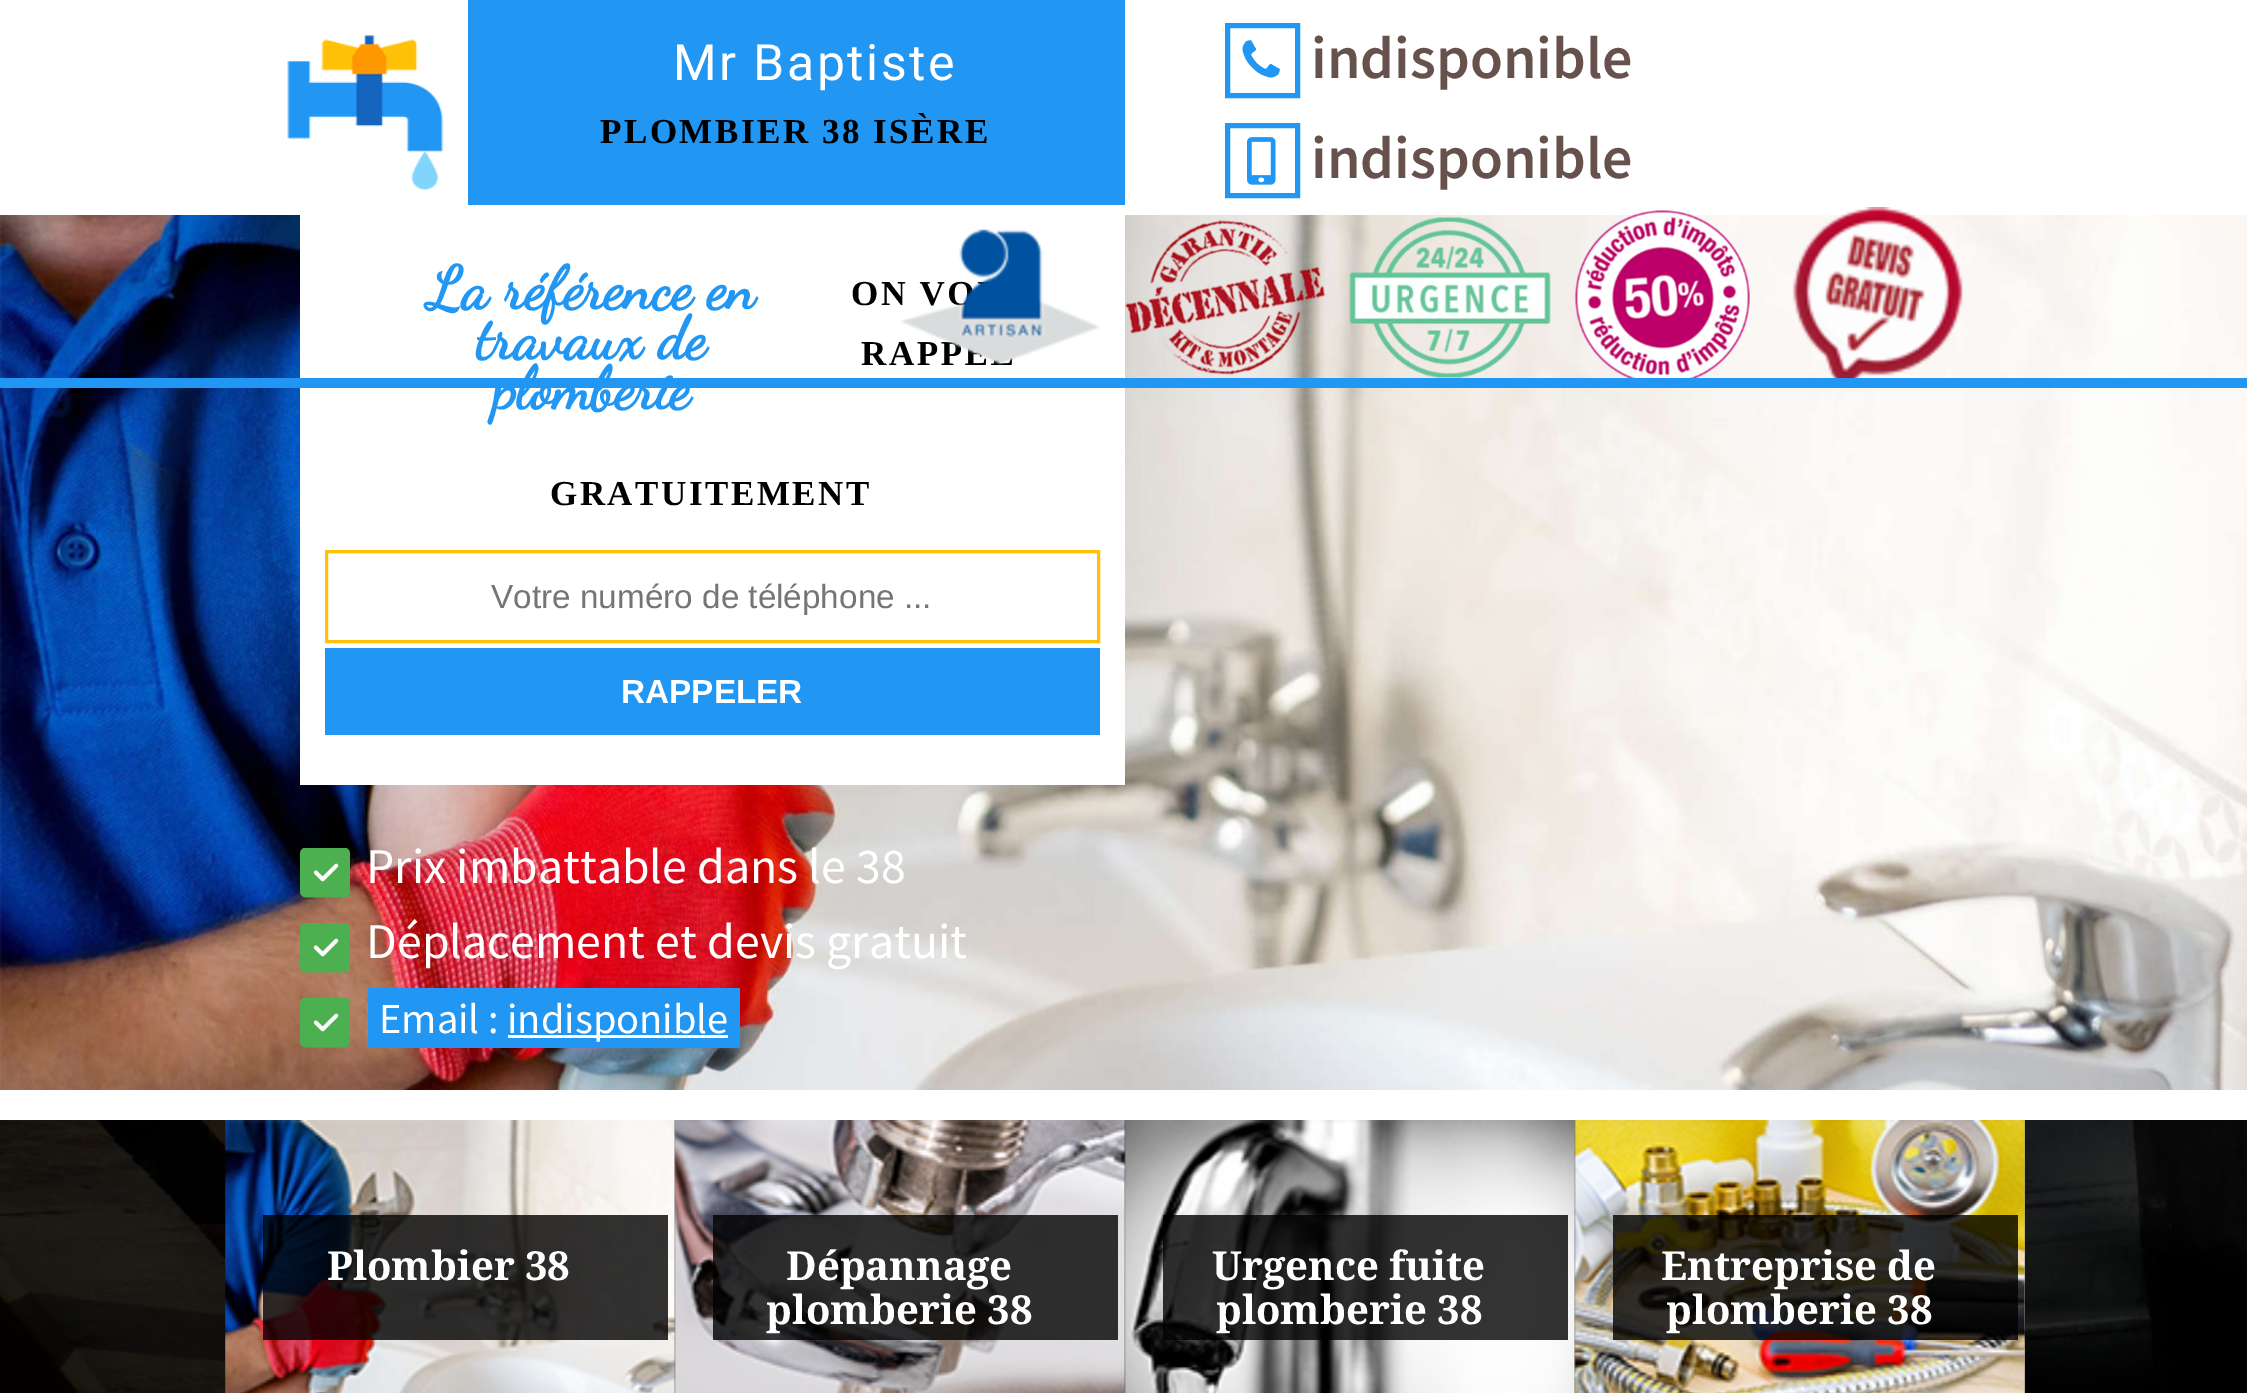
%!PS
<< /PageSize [2247 1393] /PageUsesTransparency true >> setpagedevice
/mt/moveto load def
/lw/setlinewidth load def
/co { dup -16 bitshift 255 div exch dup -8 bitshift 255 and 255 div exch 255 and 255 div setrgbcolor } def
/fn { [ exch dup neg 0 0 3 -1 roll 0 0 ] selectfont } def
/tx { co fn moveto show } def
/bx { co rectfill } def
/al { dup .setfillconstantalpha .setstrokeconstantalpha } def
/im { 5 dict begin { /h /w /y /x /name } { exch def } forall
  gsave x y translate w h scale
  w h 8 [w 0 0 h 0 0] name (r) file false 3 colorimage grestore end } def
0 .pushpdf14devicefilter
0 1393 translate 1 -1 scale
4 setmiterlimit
0 0 2247 1393 16#FFFFFF bx
(media/1.raw) 0 1120 2247 273 im
(media/2.raw) 287 35 157 156 im
468 0 657 205 16#2196F3 bx
5 lw
1227.5 25.5 70 70 rectstroke
(media/3.raw) 1242 40 38 38 im
1227.5 125.5 70 70 rectstroke
(media/4.raw) 1247 137 29 48 im
(media/10.raw) 0 215 2247 875 im
(media/6.raw) 1125 220 201 155 im
(media/7.raw) 1349 217 202 161 im
(media/8.raw) 1575 210 175 168 im
(media/9.raw) 1792 207 171 171 im
300 215 825 570 16#FFFFFF bx
0 378 2247 10 16#2196F3 bx
16#FFC107 co
3 lw
326.5 551.5 772 90 rectstroke
325 648 775 87 16#2196F3 bx
(media/11.raw) 300 848 50 50 im
(media/12.raw) 300 923 50 50 im
(media/13.raw) 300 998 50 50 im
368 988 372 60 16#2196F3 bx
508 1035 220 3 16#FFFFFF bx
(media/14.raw) 225 1120 451 273 im
0.8 al
263 1215 405 125 16#000000 bx
1 al
(media/15.raw) 674 1120 452 273 im
0.8 al
713 1215 405 125 16#000000 bx
1 al
(media/16.raw) 1124 1120 452 273 im
0.8 al
1163 1215 405 125 16#000000 bx
1 al
(media/17.raw) 1574 1120 451 273 im
0.8 al
1613 1215 405 125 16#000000 bx
1 al
(media/18.raw) 2024 1120 1 273 im
/Roboto-Regular 50 fn
16#FFFFFF co
673 80 mt 2.5 0 (Mr Baptiste) ashow
/LiberationSerif-Bold 35 fn
16#000000 co
600 143 mt 2.5 0 (PLOMBIER 38 ISÈRE) ashow
(indisponible) 1311 78 /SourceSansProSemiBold-SemiBold 60 16#66514C tx
(indisponible) 1311 178 /SourceSansProSemiBold-SemiBold 60 16#66514C tx
(La référence en) 428 308 /DancingScript-Bold 60 16#2196F3 tx
(travaux de) 476 358 /DancingScript-Bold 60 16#2196F3 tx
(plomberie) 493 408 /DancingScript-Bold 60 16#2196F3 tx
/LiberationSerif-Bold 35 fn
16#000000 co
851 305 mt 2.5 0 (ON VO) ashow
861 365 mt 2.5 0 (RAPPE) ashow
(media/5.raw) 901 229 199 136 im
550 505 mt 2.5 0 (GRATUITEMENT) ashow
(Votre numéro de téléphone ...) 491 608 /LiberationSans-Regular 33.3 16#757575 tx
(RAPPELER) 621 703 /LiberationSans-Bold 33.3 16#FFFFFF tx
(Prix imbattable dans le 38) 366 883 /SourceSansPro-Regular 50 16#FFFFFF tx
(Déplacement et devis gratuit) 366 958 /SourceSansPro-Regular 50 16#FFFFFF tx
(Email :) 379 1033 /SourceSansPro-Regular 42.5 16#FFFFFF tx
(indisponible) 507 1033 /SourceSansPro-Regular 42.5 16#FFFFFF tx
(Plombier 38) 327 1280 /NotoSerif-Bold 40 16#FFFFFF tx
(Dépannage) 786 1280 /NotoSerif-Bold 40 16#FFFFFF tx
(plomberie 38) 766 1324 /NotoSerif-Bold 40 16#FFFFFF tx
(Urgence fuite) 1212 1280 /NotoSerif-Bold 40 16#FFFFFF tx
(plomberie 38) 1216 1324 /NotoSerif-Bold 40 16#FFFFFF tx
(Entreprise de) 1661 1280 /NotoSerif-Bold 40 16#FFFFFF tx
(plomberie 38) 1666 1324 /NotoSerif-Bold 40 16#FFFFFF tx
.poppdf14devicefilter showpage
